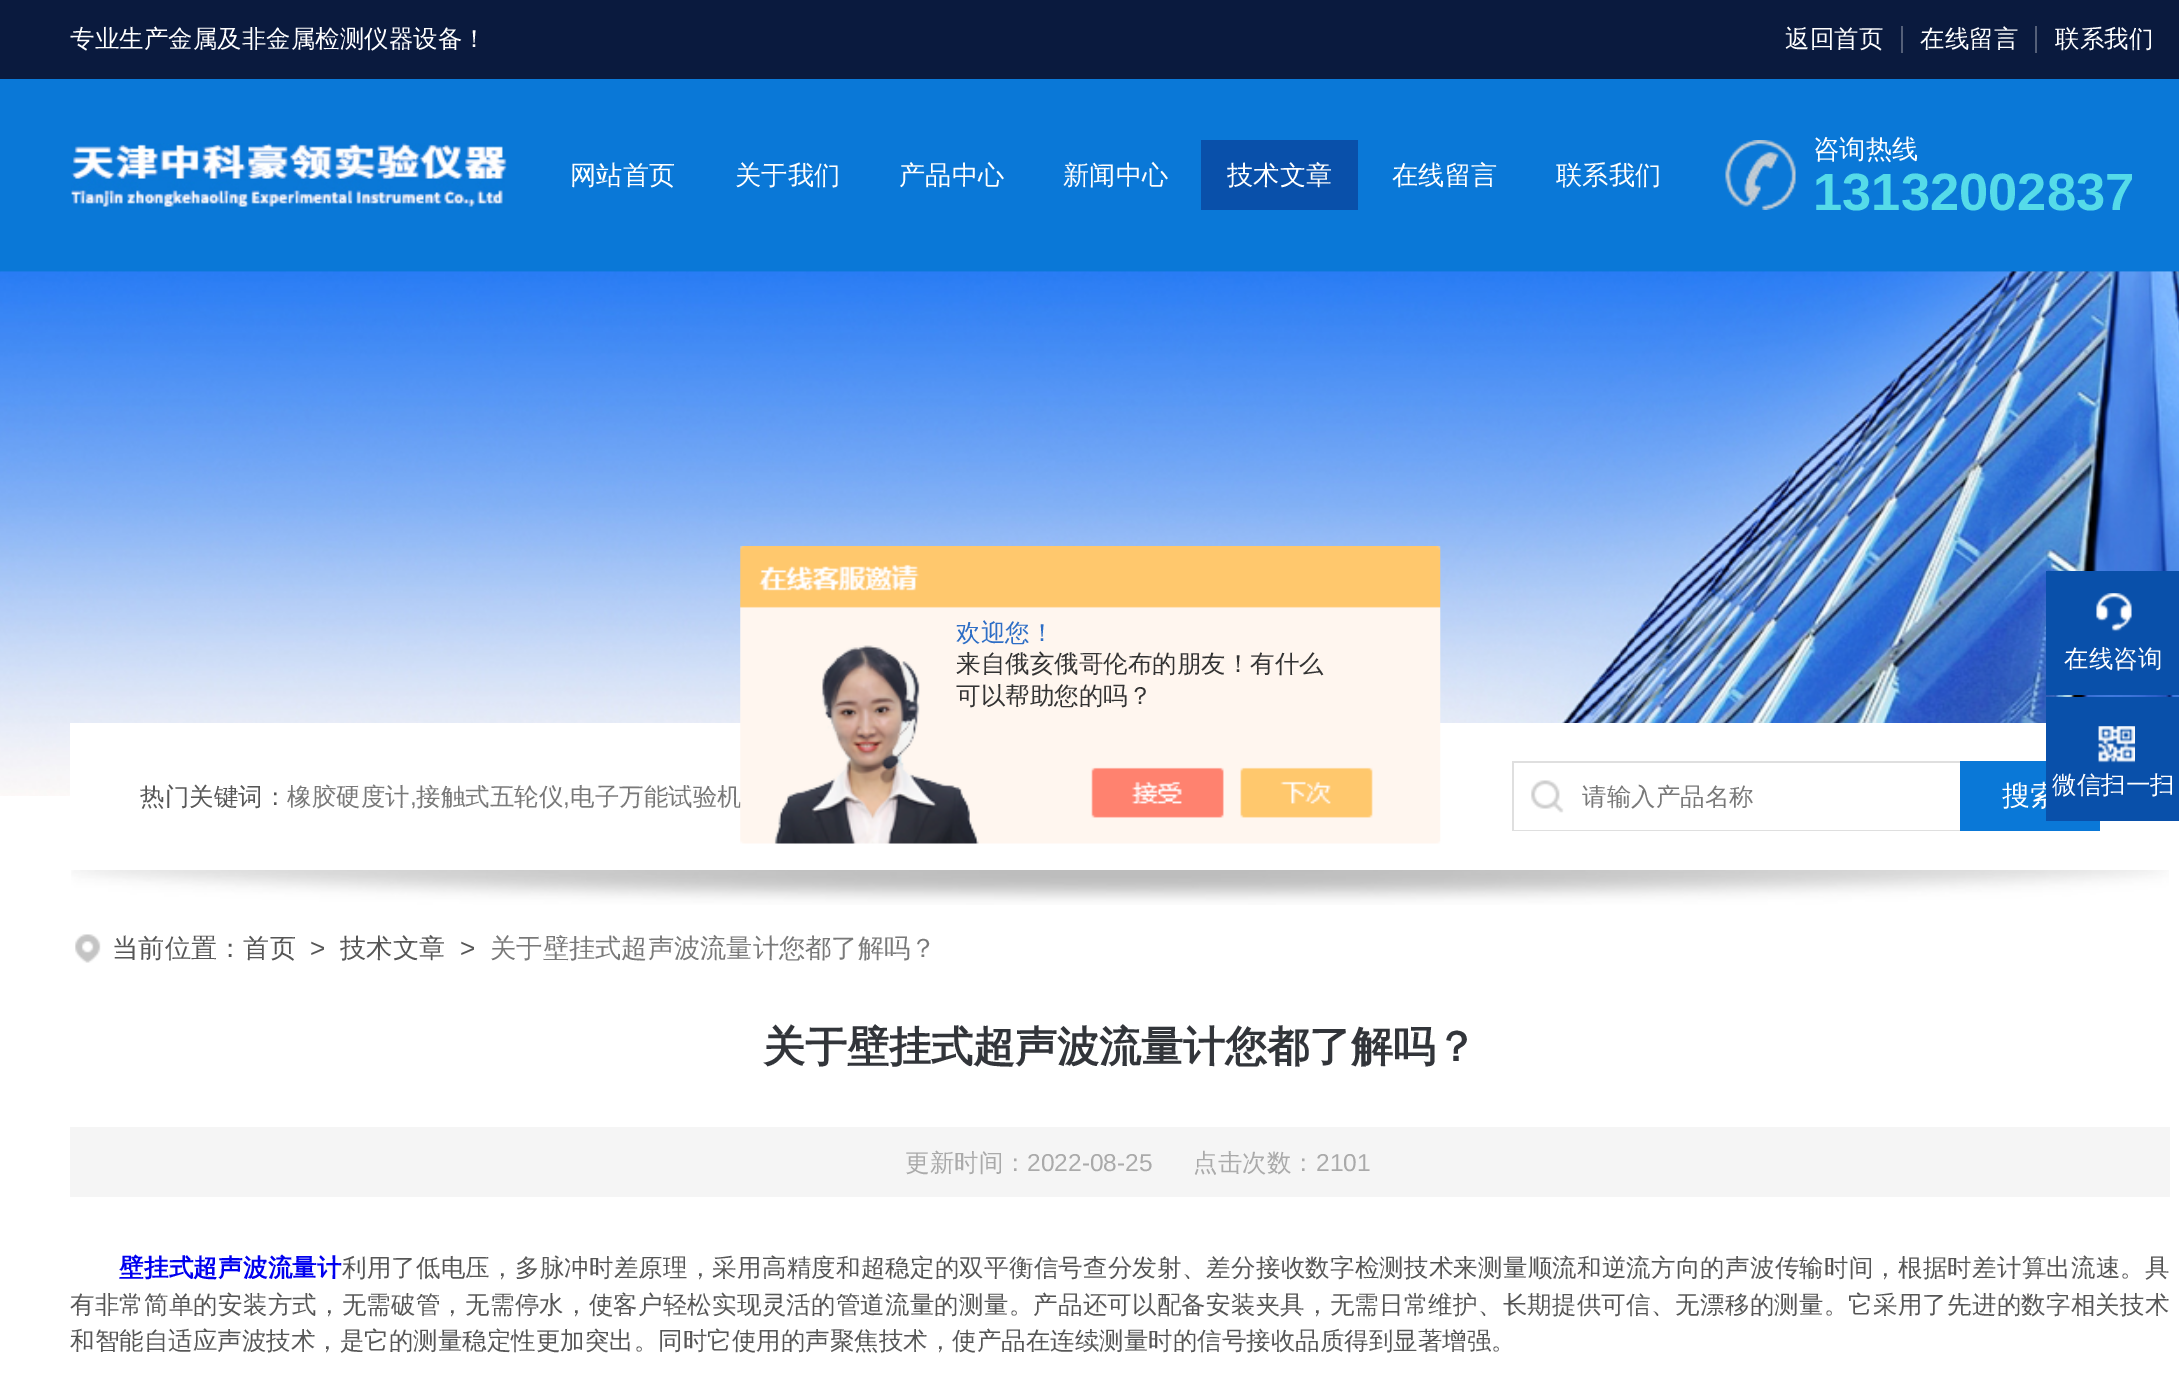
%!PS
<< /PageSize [2179 1388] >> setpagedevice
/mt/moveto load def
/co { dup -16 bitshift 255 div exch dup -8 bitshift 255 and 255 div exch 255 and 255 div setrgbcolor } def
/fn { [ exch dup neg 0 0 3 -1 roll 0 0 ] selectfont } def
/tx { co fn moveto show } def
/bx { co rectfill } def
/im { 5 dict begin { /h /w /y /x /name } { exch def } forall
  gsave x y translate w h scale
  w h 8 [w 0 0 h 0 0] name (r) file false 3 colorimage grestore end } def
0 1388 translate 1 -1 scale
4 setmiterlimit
0 0 2179 1388 16#FFFFFF bx
0 0 2179 79 16#0A1A3E bx
1901 26 2 27 16#545F78 bx
2035 26 2 27 16#545F78 bx
0 79 2179 193 16#0A78D7 bx
(media/1.raw) 71 143 436 64 im
1201 140 157 70 16#0950AA bx
(media/2.raw) 1725 140 71 70 im
(media/3.raw) 0 271 2179 526 im
2046 571 133 124 16#0950AA bx
(media/5.raw) 2096 593 36 39 im
(media/7.raw) 71 870 2098 35 im
70 723 2100 74 16#FFFFFF bx
(media/8.raw) 1531 780 33 33 im
1512 761 448 2 16#DFDFDF bx
1512 830 448 1 16#DFDFDF bx
1512 761 2 70 16#DFDFDF bx
1960 761 140 70 16#0A78D7 bx
(media/9.raw) 75 934 26 29 im
70 1127 2100 70 16#F5F5F5 bx
(专业生产金属及非金属检测仪器设备！) 70 47 /WenQuanYiZenHei-Medium 24.5 16#FFFFFF tx
(返回首页) 1785 47 /WenQuanYiZenHei-Medium 24.5 16#FFFFFF tx
(在线留言) 1920 47 /WenQuanYiZenHei-Medium 24.5 16#FFFFFF tx
(联系我们) 2055 47 /WenQuanYiZenHei-Medium 24.5 16#FFFFFF tx
(网站首页) 570 184 /WenQuanYiZenHei-Medium 26.25 16#FFFFFF tx
(关于我们) 735 184 /WenQuanYiZenHei-Medium 26.25 16#FFFFFF tx
(产品中心) 899 184 /WenQuanYiZenHei-Medium 26.25 16#FFFFFF tx
(新闻中心) 1063 184 /WenQuanYiZenHei-Medium 26.25 16#FFFFFF tx
(技术文章) 1227 184 /WenQuanYiZenHei-Medium 26.25 16#FFFFFF tx
(在线留言) 1392 184 /WenQuanYiZenHei-Medium 26.25 16#FFFFFF tx
(联系我们) 1556 184 /WenQuanYiZenHei-Medium 26.25 16#FFFFFF tx
(咨询热线) 1813 158 /WenQuanYiZenHei-Medium 26.25 16#FFFFFF tx
(13132002837) 1813 210 /LiberationSans-Bold 52.5 16#55DBE9 tx
(在线咨询) 2064 667 /WenQuanYiZenHei-Medium 24.5 16#FFFFFF tx
(热门关键词：) 140 805 /WenQuanYiZenHei-Medium 24.5 16#565656 tx
(橡胶硬度计) 287 805 /WenQuanYiZenHei-Medium 24.5 16#797979 tx
(,) 410 805 /LiberationSans-Regular 24.5 16#797979 tx
(接触式五轮仪) 416 805 /WenQuanYiZenHei-Medium 24.5 16#797979 tx
(,) 563 805 /LiberationSans-Regular 24.5 16#797979 tx
(电子万能试验机) 570 805 /WenQuanYiZenHei-Medium 24.5 16#797979 tx
(media/4.raw) 740 546 701 298 im
(可以帮助您的吗？) 956 704 /WenQuanYiZenHei-Medium 24.5 16#333333 tx
(来自俄亥俄哥伦布的朋友！有什么) 956 672 /WenQuanYiZenHei-Medium 24.5 16#333333 tx
(欢迎您！) 956 641 /WenQuanYiZenHei-Medium 24.5 16#2E6EC6 tx
(请输入产品名称) 1582 805 /WenQuanYiZenHei-Medium 24.5 16#797979 tx
(搜索) 2002 805 /WenQuanYiZenHei-Medium 28 16#FFFFFF tx
2046 697 133 124 16#0950AA bx
(微信扫一扫) 2052 793 /WenQuanYiZenHei-Medium 24.5 16#FFFFFF tx
(media/6.raw) 2098 726 37 37 im
(当前位置：首页) 112 957 /WenQuanYiZenHei-Medium 26.25 16#565656 tx
(>) 310 957 /LiberationSans-Regular 26.25 16#565656 tx
(技术文章) 340 957 /WenQuanYiZenHei-Medium 26.25 16#565656 tx
(>) 460 957 /LiberationSans-Regular 26.25 16#565656 tx
(关于壁挂式超声波流量计您都了解吗？) 490 957 /WenQuanYiZenHei-Medium 26.25 16#797979 tx
(关于壁挂式超声波流量计您都了解吗？) 763 1061 /WenQuanYiZenHei-Bold 42 16#32353A tx
(更新时间：) 905 1171 /WenQuanYiZenHei-Medium 24.5 16#AAAAAA tx
(2022-08-25) 1027 1171 /LiberationSans-Regular 24.5 16#AAAAAA tx
(点击次数：) 1193 1171 /WenQuanYiZenHei-Medium 24.5 16#AAAAAA tx
(2101) 1316 1171 /LiberationSans-Regular 24.5 16#AAAAAA tx
/WenQuanYiZenHei-Bold 24.5 fn
16#0000EE co
119 1276 mt .25 0 (壁挂式超声波流量计) ashow
/WenQuanYiZenHei-Medium 24.5 fn
16#565656 co
342 1276 mt .2 0 (利用了低电压，多脉冲时差原理，采用高精度和超稳定的双平衡信号查分发射、差分接收数字检测技术来测量顺流和逆流方向的声波传输时间，根据时差计算出流速。具) ashow
70 1313 mt .2 0 (有非常简单的安装方式，无需破管，无需停水，使客户轻松实现灵活的管道流量的测量。产品还可以配备安装夹具，无需日常维护、长期提供可信、无漂移的测量。它采用了先进的数字相关技术) ashow
(和智能自适应声波技术，是它的测量稳定性更加突出。同时它使用的声聚焦技术，使产品在连续测量时的信号接收品质得到显著增强。) 70 1349 /WenQuanYiZenHei-Medium 24.5 16#565656 tx
showpage
